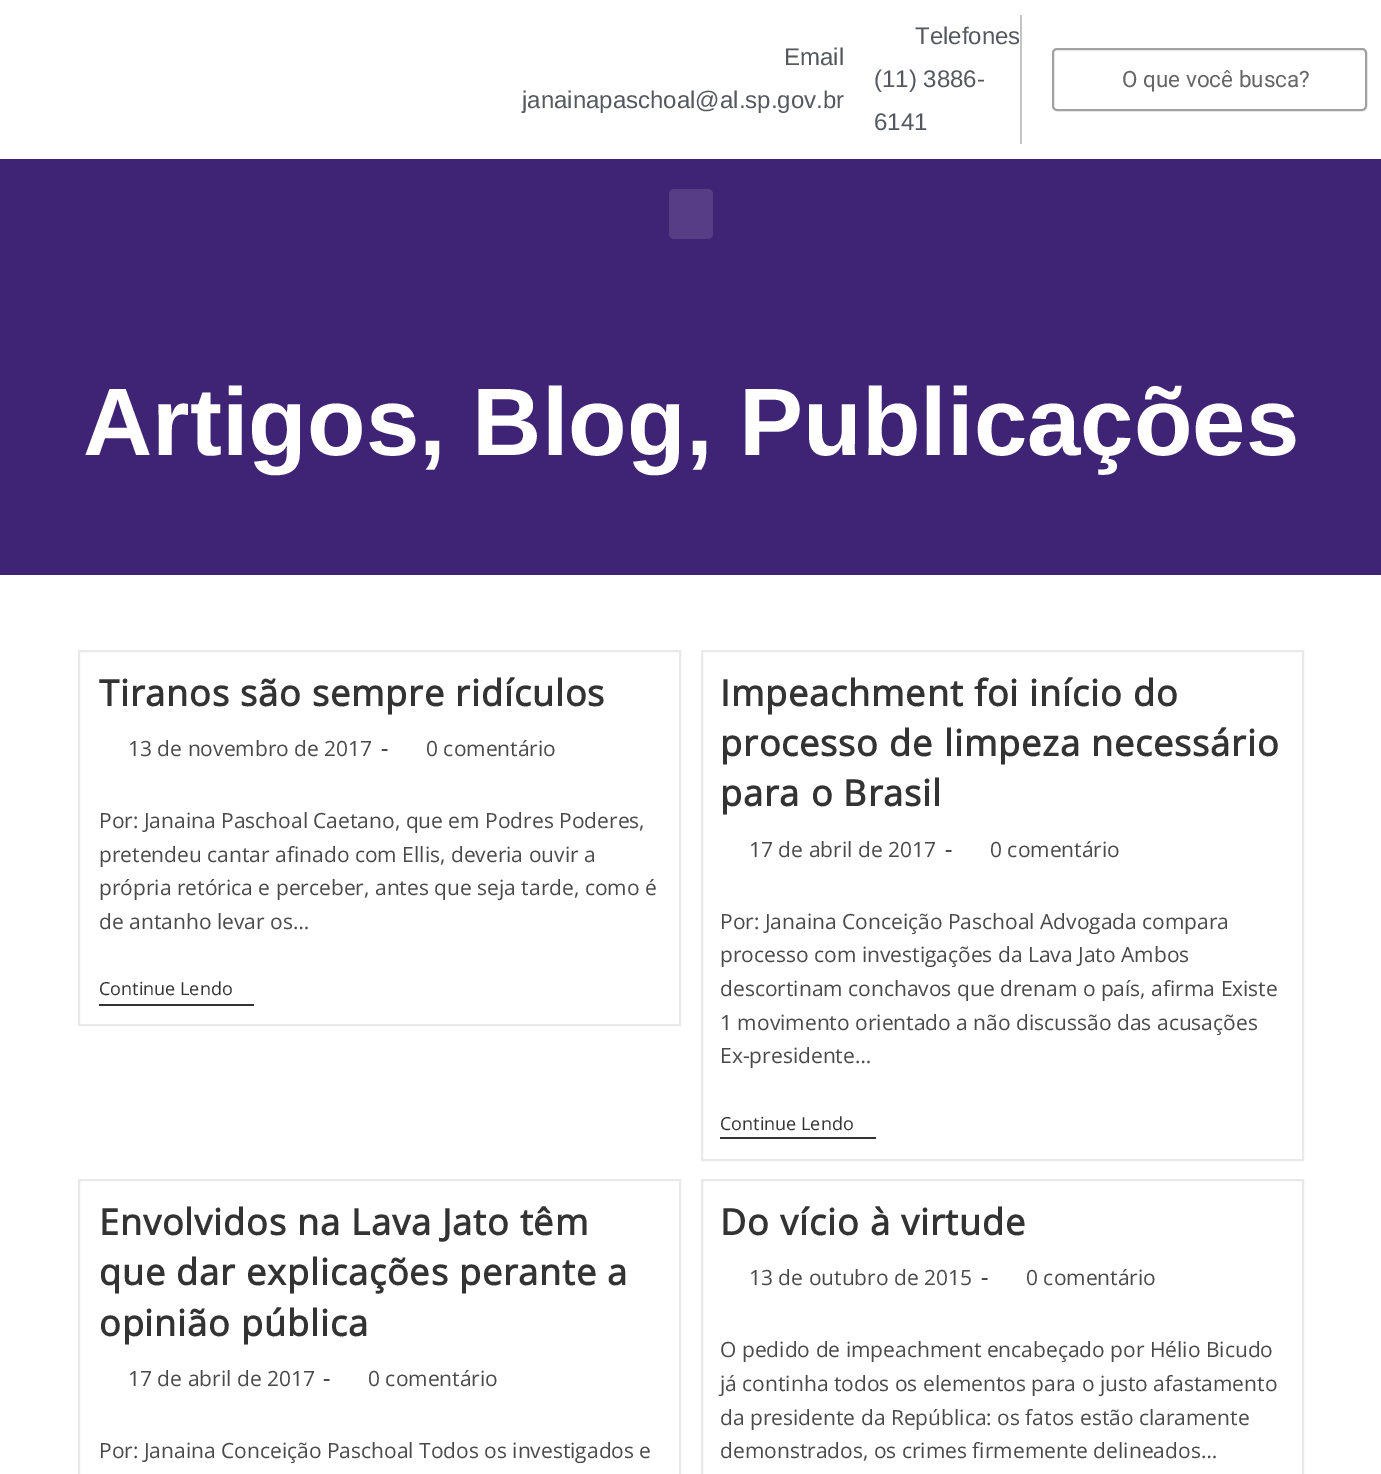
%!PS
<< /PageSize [1381 1474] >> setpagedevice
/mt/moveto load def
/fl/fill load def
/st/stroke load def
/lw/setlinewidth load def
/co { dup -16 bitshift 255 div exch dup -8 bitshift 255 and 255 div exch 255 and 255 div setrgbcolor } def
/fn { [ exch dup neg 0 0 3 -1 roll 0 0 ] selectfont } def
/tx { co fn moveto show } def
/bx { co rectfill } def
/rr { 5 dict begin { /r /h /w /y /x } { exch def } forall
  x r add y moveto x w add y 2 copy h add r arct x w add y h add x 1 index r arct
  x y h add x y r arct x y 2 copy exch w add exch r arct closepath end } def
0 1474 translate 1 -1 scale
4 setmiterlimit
0 0 1381 1474 16#FFFFFF bx
1020 15 2 129 16#C4C4C4 bx
16#A1A1A1 co
2 lw
1053 49 313 61 4 rr st
0 159 1381 416 16#3F2375 bx
16#563D86 co
669 189 44 50 5 rr fl
16#E9E9E9 co
79 651 601 374 rectstroke
99 1004 155 2 16#333333 bx
16#E9E9E9 co
702 651 601 509 rectstroke
720 1137 156 2 16#333333 bx
16#E9E9E9 co
79 1180 601 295 rectstroke
702 1180 601 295 rectstroke
(Email) 784 65 /LiberationSans-Regular 24 16#54595F tx
(janainapaschoal@al.sp.gov.br) 522 108 /LiberationSans-Regular 24 16#54595F tx
(Telefones) 915 44 /LiberationSans-Regular 24 16#54595F tx
(\(11\) 3886-) 874 87 /LiberationSans-Regular 24 16#54595F tx
(6141) 874 130 /LiberationSans-Regular 24 16#54595F tx
(O que você busca?) 1122 87 /Roboto-Regular 22.5 16#666666 tx
(Artigos, Blog, Publicações) 83 455 /LiberationSans-Bold 96 16#FFFFFF tx
/OpenSans-Bold 36 fn
16#333333 co
99 706 mt .9 0 (Tiranos são sempre ridículos) ashow
(13 de novembro de 2017) 128 756 /OpenSans-Regular 21 16#4A4A4A tx
(-) 381 756 /OpenSans-Bold 21 16#4A4A4A tx
(0 comentário) 426 756 /OpenSans-Regular 21 16#4A4A4A tx
(Por: Janaina Paschoal Caetano, que em Podres Poderes,) 99 828 /OpenSans-Regular 21 16#4A4A4A tx
(pretendeu cantar afinado com Ellis, deveria ouvir a) 99 862 /OpenSans-Regular 21 16#4A4A4A tx
(própria retórica e perceber, antes que seja tarde, como é) 99 895 /OpenSans-Regular 21 16#4A4A4A tx
(de antanho levar os…) 99 929 /OpenSans-Regular 21 16#4A4A4A tx
(Continue Lendo) 99 995 /OpenSans-Regular 18 16#333333 tx
/OpenSans-Bold 36 fn
720 706 mt .9 0 (Impeachment foi início do) ashow
720 756 mt .9 0 (processo de limpeza necessário) ashow
720 806 mt .9 0 (para o Brasil) ashow
(17 de abril de 2017) 749 857 /OpenSans-Regular 21 16#4A4A4A tx
(-) 945 857 /OpenSans-Bold 21 16#4A4A4A tx
(0 comentário) 990 857 /OpenSans-Regular 21 16#4A4A4A tx
(Por: Janaina Conceição Paschoal Advogada compara) 720 929 /OpenSans-Regular 21 16#4A4A4A tx
(processo com investigações da Lava Jato Ambos) 720 962 /OpenSans-Regular 21 16#4A4A4A tx
(descortinam conchavos que drenam o país, afirma Existe) 720 996 /OpenSans-Regular 21 16#4A4A4A tx
(1 movimento orientado a não discussão das acusações) 720 1030 /OpenSans-Regular 21 16#4A4A4A tx
(Ex-presidente…) 720 1063 /OpenSans-Regular 21 16#4A4A4A tx
(Continue Lendo) 720 1130 /OpenSans-Regular 18 16#333333 tx
/OpenSans-Bold 36 fn
99 1235 mt .9 0 (Envolvidos na Lava Jato têm) ashow
99 1285 mt .9 0 (que dar explicações perante a) ashow
99 1336 mt .9 0 (opinião pública) ashow
(17 de abril de 2017) 128 1386 /OpenSans-Regular 21 16#4A4A4A tx
(-) 323 1386 /OpenSans-Bold 21 16#4A4A4A tx
(0 comentário) 368 1386 /OpenSans-Regular 21 16#4A4A4A tx
(Por: Janaina Conceição Paschoal Todos os investigados e) 99 1458 /OpenSans-Regular 21 16#4A4A4A tx
/OpenSans-Bold 36 fn
16#333333 co
720 1235 mt .9 0 (Do vício à virtude) ashow
(13 de outubro de 2015) 749 1285 /OpenSans-Regular 21 16#4A4A4A tx
(-) 981 1285 /OpenSans-Bold 21 16#4A4A4A tx
(0 comentário) 1026 1285 /OpenSans-Regular 21 16#4A4A4A tx
(O pedido de impeachment encabeçado por Hélio Bicudo) 720 1357 /OpenSans-Regular 21 16#4A4A4A tx
(já continha todos os elementos para o justo afastamento) 720 1391 /OpenSans-Regular 21 16#4A4A4A tx
(da presidente da República: os fatos estão claramente) 720 1425 /OpenSans-Regular 21 16#4A4A4A tx
(demonstrados, os crimes firmemente delineados…) 720 1458 /OpenSans-Regular 21 16#4A4A4A tx
showpage
